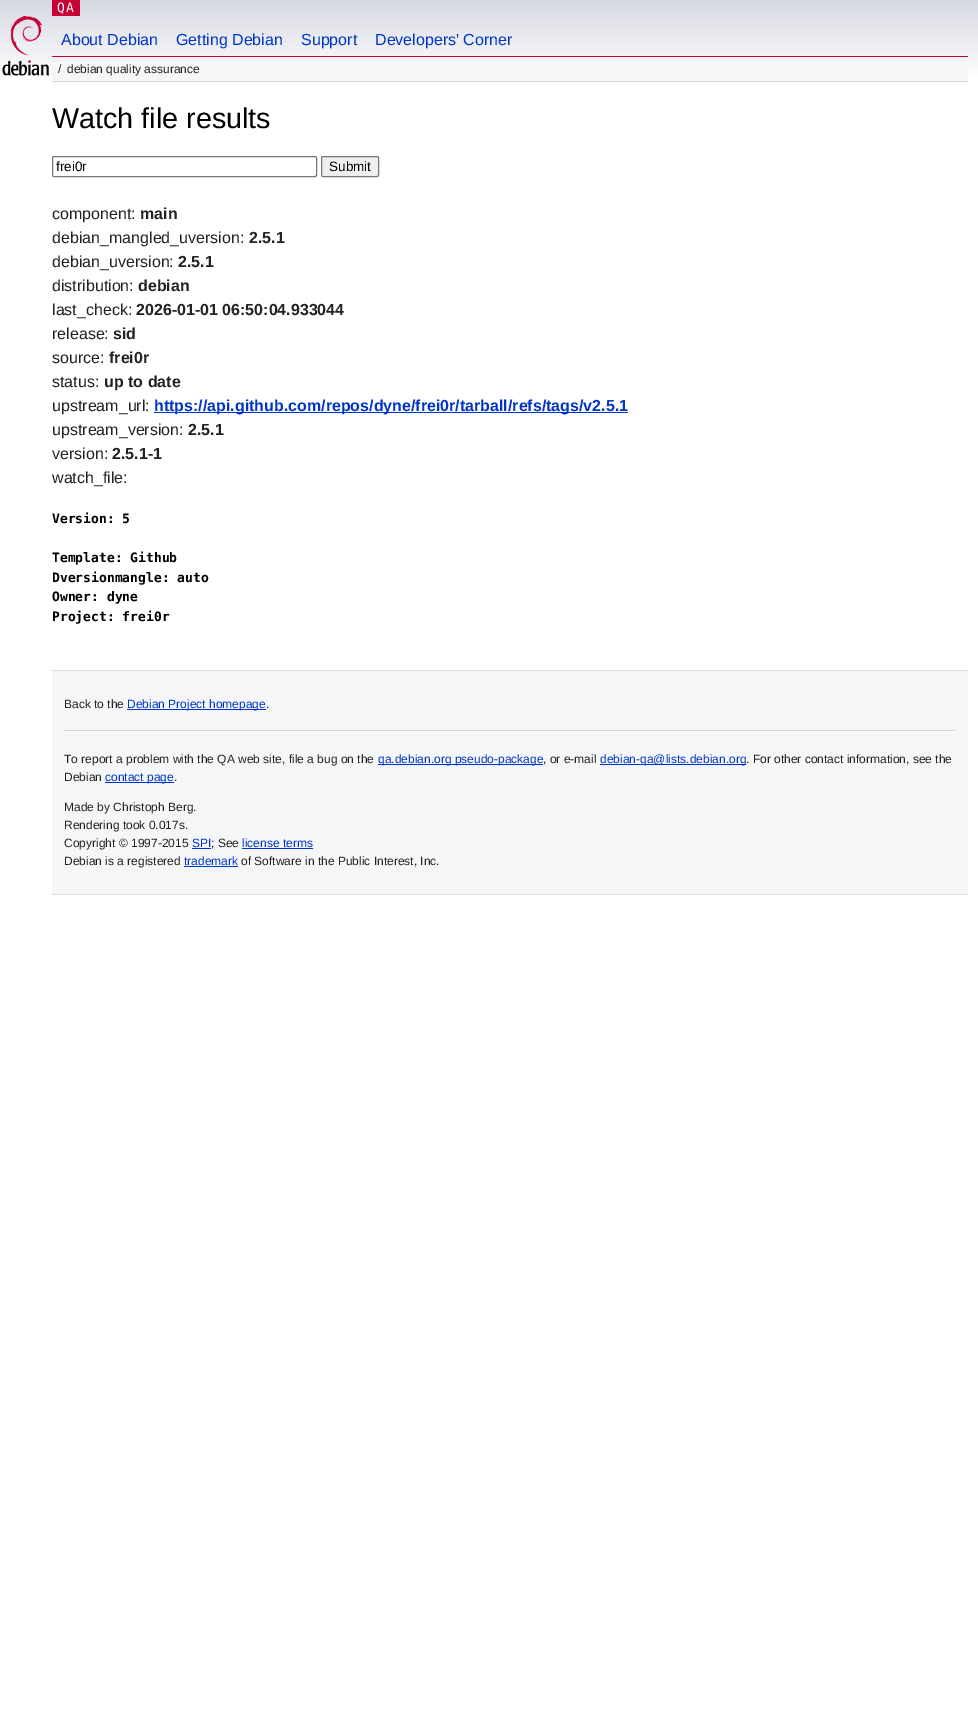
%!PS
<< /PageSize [978 1732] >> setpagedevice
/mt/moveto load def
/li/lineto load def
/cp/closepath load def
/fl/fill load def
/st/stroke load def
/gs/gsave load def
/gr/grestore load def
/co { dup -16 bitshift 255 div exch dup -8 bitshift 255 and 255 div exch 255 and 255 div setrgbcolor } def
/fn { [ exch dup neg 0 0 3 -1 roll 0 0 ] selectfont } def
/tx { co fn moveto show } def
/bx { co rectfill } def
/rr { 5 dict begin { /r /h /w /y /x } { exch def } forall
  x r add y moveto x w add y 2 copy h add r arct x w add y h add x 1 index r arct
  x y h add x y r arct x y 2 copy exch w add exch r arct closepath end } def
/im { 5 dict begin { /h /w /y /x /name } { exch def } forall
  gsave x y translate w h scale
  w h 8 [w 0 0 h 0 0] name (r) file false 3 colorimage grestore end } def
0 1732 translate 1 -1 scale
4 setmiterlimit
0 0 978 1732 16#FFFFFF bx
gs 0 0 mt 978 0 li 978 77 li 0 77 li cp clip newpath
<< /ShadingType 2 /ColorSpace /DeviceRGB /Coords [489 0 489 82] /Extend [true true] /Function << /FunctionType 2 /Domain [0 1] /C0 [.843 .851 .886] /C1 [1 1 1] /N 1 >> >> shfill gr
52 0 28 16 16#C70036 bx
(media/1.raw) 2 16 47 60 im
52 56 916 1 16#C70036 bx
52 66 916 15 16#F5F6F7 bx
52 81 916 1 16#D2D3D7 bx
16#767676 co
52.5 156.5 264 20 1.5 rr st
16#EFEFEF co
321.5 156.5 57 20 1.5 rr gs fl gr
16#767676 co
st
154 412 474 1 16#0035C7 bx
52 671 916 223 16#F5F6F7 bx
52 670 916 1 16#DFDFE0 bx
52 894 916 1 16#DFDFE0 bx
127 709 139 1 16#0035C7 bx
64 730 892 1 16#D2D3D7 bx
64 731 892 1 16#FFFFFF bx
378 764 165 1 16#0035C7 bx
600 764 146 1 16#0035C7 bx
105 782 69 1 16#0035C7 bx
192 848 19 1 16#0035C7 bx
242 848 71 1 16#0035C7 bx
184 866 54 1 16#0035C7 bx
/DejaVuSansMono-Regular 13 fn
16#FFFFFF co
57 12 mt 1 0 (QA) ashow
(About Debian) 61 45 /LiberationSans-Regular 16 16#0035C7 tx
(Getting Debian) 176 45 /LiberationSans-Regular 16 16#0035C7 tx
(Support) 301 45 /LiberationSans-Regular 16 16#0035C7 tx
(Developers' Corner) 375 45 /LiberationSans-Regular 16 16#0035C7 tx
(/) 58 73 /LiberationSans-Regular 12 16#222222 tx
(debian quality assurance) 67 73 /LiberationSans-Regular 12 16#222222 tx
(Watch file results) 52 128 /LiberationSans-Regular 28.75 16#000000 tx
(frei0r) 56 171 /LiberationSans-Regular 13.5 16#000000 tx
(Submit) 329 171 /LiberationSans-Regular 13.5 16#000000 tx
(component:) 52 219 /LiberationSans-Regular 16 16#222222 tx
(main) 140 219 /LiberationSans-Bold 16 16#222222 tx
(debian_mangled_uversion:) 52 243 /LiberationSans-Regular 16 16#222222 tx
(2.5.1) 249 243 /LiberationSans-Bold 16 16#222222 tx
(debian_uversion:) 52 267 /LiberationSans-Regular 16 16#222222 tx
(2.5.1) 178 267 /LiberationSans-Bold 16 16#222222 tx
(distribution:) 52 291 /LiberationSans-Regular 16 16#222222 tx
(debian) 138 291 /LiberationSans-Bold 16 16#222222 tx
(last_check:) 52 315 /LiberationSans-Regular 16 16#222222 tx
(2026-01-01 06:50:04.933044) 136 315 /LiberationSans-Bold 16 16#222222 tx
(release:) 52 339 /LiberationSans-Regular 16 16#222222 tx
(sid) 113 339 /LiberationSans-Bold 16 16#222222 tx
(source:) 52 363 /LiberationSans-Regular 16 16#222222 tx
(frei0r) 109 363 /LiberationSans-Bold 16 16#222222 tx
(status:) 52 387 /LiberationSans-Regular 16 16#222222 tx
(up to date) 104 387 /LiberationSans-Bold 16 16#222222 tx
(upstream_url:) 52 411 /LiberationSans-Regular 16 16#222222 tx
(https://api.github.com/repos/dyne/frei0r/tarball/refs/tags/v2.5.1) 154 411 /LiberationSans-Bold 16 16#0035C7 tx
(upstream_version:) 52 435 /LiberationSans-Regular 16 16#222222 tx
(2.5.1) 188 435 /LiberationSans-Bold 16 16#222222 tx
(version:) 52 459 /LiberationSans-Regular 16 16#222222 tx
(2.5.1-1) 112 459 /LiberationSans-Bold 16 16#222222 tx
(watch_file:) 52 483 /LiberationSans-Regular 16 16#222222 tx
(Version: 5) 52 523 /DejaVuSansMono-Bold 13 16#000000 tx
(Template: Github) 52 562 /DejaVuSansMono-Bold 13 16#000000 tx
(Dversionmangle: auto) 52 582 /DejaVuSansMono-Bold 13 16#000000 tx
(Owner: dyne) 52 601 /DejaVuSansMono-Bold 13 16#000000 tx
(Project: frei0r) 52 621 /DejaVuSansMono-Bold 13 16#000000 tx
(Back to the) 64 708 /LiberationSans-Regular 12 16#222222 tx
(Debian Project homepage) 127 708 /LiberationSans-Regular 12 16#0035C7 tx
(.) 266 708 /LiberationSans-Regular 12 16#222222 tx
(To report a problem with the QA web site, file a bug on the) 64 763 /LiberationSans-Regular 12 16#222222 tx
(qa.debian.org pseudo-package) 378 763 /LiberationSans-Regular 12 16#0035C7 tx
(, or e-mail) 543 763 /LiberationSans-Regular 12 16#222222 tx
(debian-qa@lists.debian.org) 600 763 /LiberationSans-Regular 12 16#0035C7 tx
(. For other contact information, see the) 746 763 /LiberationSans-Regular 12 16#222222 tx
(Debian) 64 781 /LiberationSans-Regular 12 16#222222 tx
(contact page) 105 781 /LiberationSans-Regular 12 16#0035C7 tx
(.) 174 781 /LiberationSans-Regular 12 16#222222 tx
(Made by Christoph Berg.) 64 811 /LiberationSans-Regular 12 16#222222 tx
(Rendering took 0.017s.) 64 829 /LiberationSans-Regular 12 16#222222 tx
(Copyright © 1997-2015) 64 847 /LiberationSans-Regular 12 16#222222 tx
(SPI) 192 847 /LiberationSans-Regular 12 16#0035C7 tx
(; See) 211 847 /LiberationSans-Regular 12 16#222222 tx
(license terms) 242 847 /LiberationSans-Regular 12 16#0035C7 tx
(Debian is a registered) 64 865 /LiberationSans-Regular 12 16#222222 tx
(trademark) 184 865 /LiberationSans-Regular 12 16#0035C7 tx
(of Software in the Public Interest, Inc.) 241 865 /LiberationSans-Regular 12 16#222222 tx
showpage
